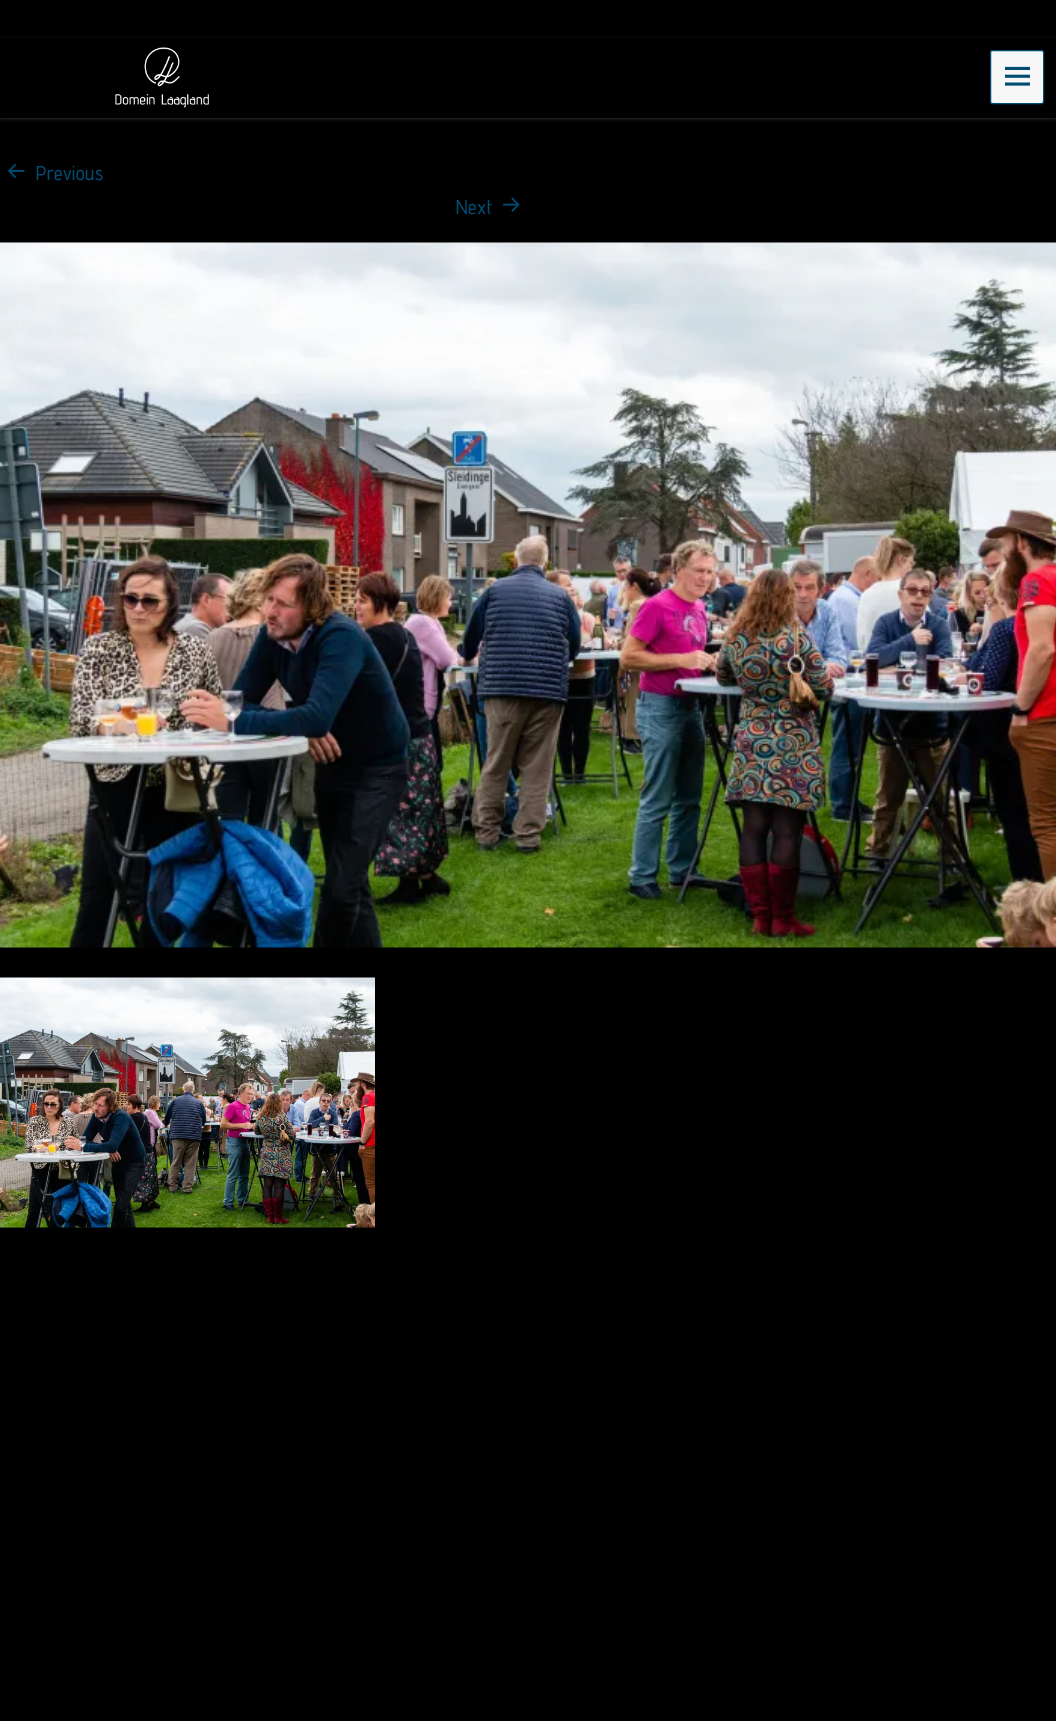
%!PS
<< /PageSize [1056 1721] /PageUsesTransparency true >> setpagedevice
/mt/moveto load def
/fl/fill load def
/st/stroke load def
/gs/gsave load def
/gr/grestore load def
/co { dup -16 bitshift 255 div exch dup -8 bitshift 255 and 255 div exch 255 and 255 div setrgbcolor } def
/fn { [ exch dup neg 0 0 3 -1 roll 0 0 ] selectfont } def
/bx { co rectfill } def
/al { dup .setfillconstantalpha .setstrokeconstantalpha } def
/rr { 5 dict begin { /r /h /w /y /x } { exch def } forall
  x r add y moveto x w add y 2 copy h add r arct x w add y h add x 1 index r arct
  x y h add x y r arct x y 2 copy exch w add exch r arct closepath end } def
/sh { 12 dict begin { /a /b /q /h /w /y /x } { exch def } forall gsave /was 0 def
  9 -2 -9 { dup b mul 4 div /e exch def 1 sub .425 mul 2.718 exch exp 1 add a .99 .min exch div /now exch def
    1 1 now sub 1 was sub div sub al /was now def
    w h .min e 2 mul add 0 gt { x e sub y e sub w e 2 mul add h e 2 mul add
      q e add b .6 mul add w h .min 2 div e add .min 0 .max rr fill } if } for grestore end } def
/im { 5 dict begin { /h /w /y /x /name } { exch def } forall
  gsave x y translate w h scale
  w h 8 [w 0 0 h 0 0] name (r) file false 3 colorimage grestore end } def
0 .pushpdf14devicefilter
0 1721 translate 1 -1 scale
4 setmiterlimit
0 0 1056 1721 16#000000 bx
16#3C4B44 co
1 40 1054 78 0 2 1 sh
0 38 1056 80 16#000000 bx
(media/1.raw) 115 47 94 61 im
16#F7F7F7 co
990.5 50.5 53 53 2 rr gs fl gr
16#004C73 co
st
(media/2.raw) 1005 66 25 20 im
(media/3.raw) 7 163 18 15 im
(media/4.raw) 503 197 17 15 im
(media/5.raw) 0 242 1056 706 im
(media/6.raw) 0 977 375 251 im
/AdventPro-Medium 20 fn
36 180 mt .5 0 (Previous) ashow
456 214 mt .5 0 (Next) ashow
.poppdf14devicefilter showpage
